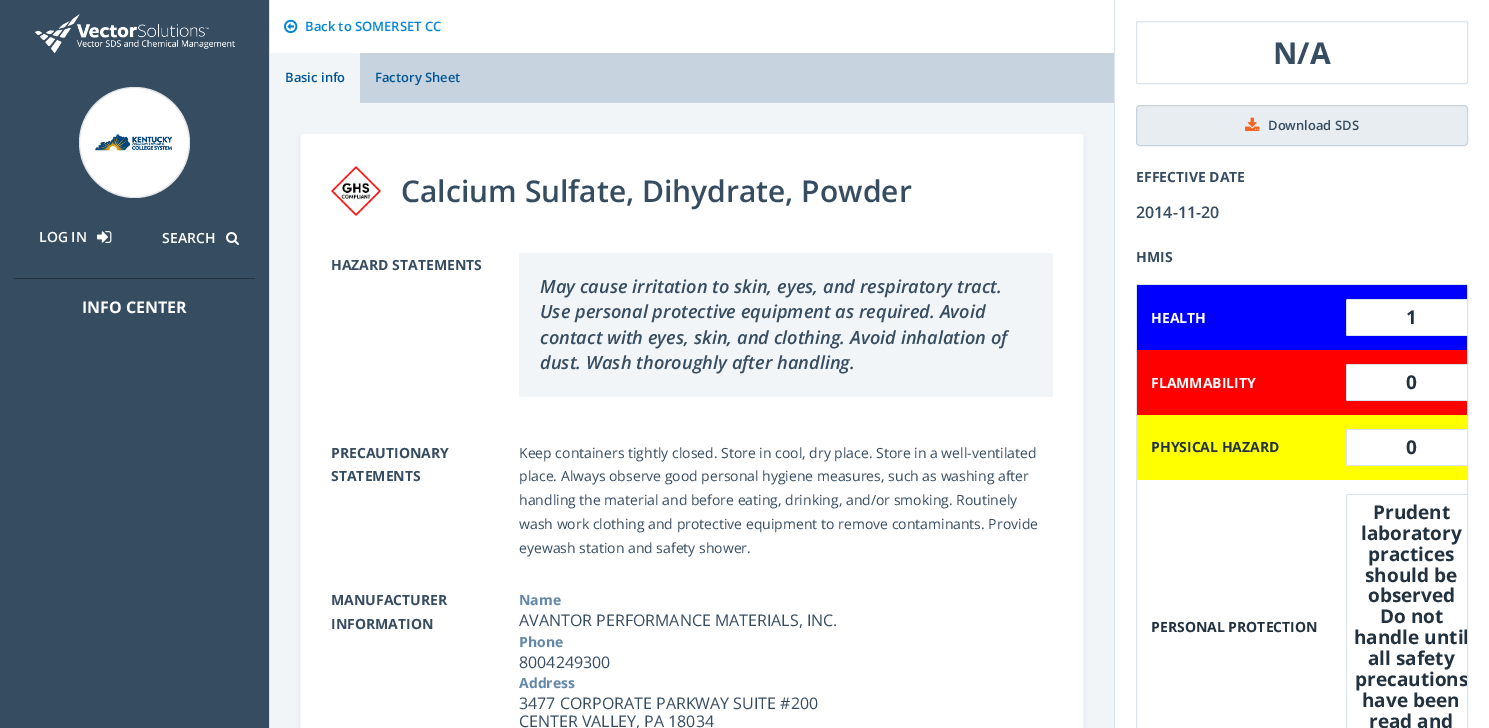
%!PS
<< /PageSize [1489 728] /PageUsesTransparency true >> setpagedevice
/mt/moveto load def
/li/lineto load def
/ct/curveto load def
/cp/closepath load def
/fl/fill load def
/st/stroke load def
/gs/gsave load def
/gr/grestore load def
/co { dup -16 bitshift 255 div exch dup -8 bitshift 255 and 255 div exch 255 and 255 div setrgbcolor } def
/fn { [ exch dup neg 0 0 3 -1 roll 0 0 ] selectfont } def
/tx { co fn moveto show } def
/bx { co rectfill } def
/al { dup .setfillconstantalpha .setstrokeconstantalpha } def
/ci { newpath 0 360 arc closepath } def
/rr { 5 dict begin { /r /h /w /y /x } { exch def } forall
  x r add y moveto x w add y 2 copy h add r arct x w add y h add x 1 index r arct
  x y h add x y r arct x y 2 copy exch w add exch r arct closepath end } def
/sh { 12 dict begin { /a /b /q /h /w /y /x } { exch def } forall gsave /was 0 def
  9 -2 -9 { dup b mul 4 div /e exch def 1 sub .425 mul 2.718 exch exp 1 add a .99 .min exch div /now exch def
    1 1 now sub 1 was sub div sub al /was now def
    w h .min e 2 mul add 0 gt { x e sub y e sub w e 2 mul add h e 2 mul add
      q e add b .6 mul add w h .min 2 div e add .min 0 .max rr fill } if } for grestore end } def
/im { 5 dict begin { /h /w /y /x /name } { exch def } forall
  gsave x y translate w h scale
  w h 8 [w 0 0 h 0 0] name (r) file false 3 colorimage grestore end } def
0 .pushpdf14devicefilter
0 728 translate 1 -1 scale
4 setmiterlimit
0 0 1489 728 16#F2F5F8 bx
0 0 269 728 16#364C61 bx
269 0 1 728 16#DBE3EB bx
(media/1.raw) 35 14 200 39 im
16#FFFFFF co
134.5 142.5 55.5 ci fl
(media/2.raw) 95 134 78 17 im
0.15 al
16#364C61 co
134.5 142.5 55 ci st
1 al
(media/3.raw) 97 231 15 12 im
(media/4.raw) 226 232 13 13 im
14 278 241 1 16#233240 bx
270 0 844 53 16#FFFFFF bx
(media/5.raw) 284 19 14 15 im
360 53 754 50 16#C7D4E0 bx
1115 0 374 728 16#FFFFFF bx
1114 0 1 728 16#DBE3EB bx
1136.5 21.5 331 62 1.5 rr st
16#E8EDF2 co
1136.5 105.5 331 40 3.5 rr gs fl gr
16#C7D4E0 co
st
(media/6.raw) 1245 117 15 14 im
16#DBE3EB co
1136.5 284.5 331 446 1.5 rr st
16#0000FF co
1138 285 mt 1466 285 li 1466.5 285 1467 285.5 1467 286 ct 1467 350 li 1137 350 li 1137 286 li 1137 285.5 1137.5 285 1138 285 ct cp fl
16#FFFFFF co
1348 299 mt 1467 299 li 1467 336 li 1348 336 li 1347 336 1346 335 1346 334 ct 1346 301 li 1346 300 1347 299 1348 299 ct cp fl
16#DBE3EB co
1348 299 mt 1347 299 1346 300 1346 301 ct 1346 334 li 1346 335 1347 336 1348 336 ct 1467 336 li 1467 335 li 1348 335 li 1347 335 1347 335 1347 334 ct 1347 301 li 1347 300 1347 300 1348 300 ct 1467 300 li 1467 299 li cp fl
1137 350 330 65 16#FF0000 bx
16#FFFFFF co
1348 364 mt 1467 364 li 1467 401 li 1348 401 li 1347 401 1346 400 1346 399 ct 1346 366 li 1346 365 1347 364 1348 364 ct cp fl
16#DBE3EB co
1348 364 mt 1347 364 1346 365 1346 366 ct 1346 399 li 1346 400 1347 401 1348 401 ct 1467 401 li 1467 400 li 1348 400 li 1347 400 1347 400 1347 399 ct 1347 366 li 1347 365 1347 365 1348 365 ct 1467 365 li 1467 364 li cp fl
1137 415 330 65 16#FFFF00 bx
16#FFFFFF co
1348 429 mt 1467 429 li 1467 466 li 1348 466 li 1347 466 1346 465 1346 464 ct 1346 431 li 1346 430 1347 429 1348 429 ct cp fl
16#DBE3EB co
1348 429 mt 1347 429 1346 430 1346 431 ct 1346 464 li 1346 465 1347 466 1348 466 ct 1467 466 li 1467 465 li 1348 465 li 1347 465 1347 465 1347 464 ct 1347 431 li 1347 430 1347 430 1348 430 ct 1467 430 li 1467 429 li cp fl
1348 494 mt 1347 494 1346 495 1346 496 ct 1346 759 li 1346 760 1347 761 1348 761 ct 1467 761 li 1467 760 li 1348 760 li 1347 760 1347 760 1347 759 ct 1347 496 li 1347 495 1347 495 1348 495 ct 1467 495 li 1467 494 li cp fl
16#6387A9 co
300 136 784 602 2 2.5 .2 sh
16#FFFFFF co
300.5 133.5 783 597 1.5 rr gs fl gr
16#F4F6F9 co
st
(media/7.raw) 331 166 50 50 im
16#F2F5F8 co
519 253 534 144 2 rr fl
(LOG IN) 39 242 /OpenSans-SemiBold 14 16#FFFFFF tx
(SEARCH) 162 243 /OpenSans-SemiBold 14 16#FFFFFF tx
(INFO CENTER) 82 313 /OpenSans-Bold 16 16#FFFFFF tx
(Back to SOMERSET CC) 305 31 /OpenSans-SemiBold 13 16#0085DA tx
(Basic info) 285 82 /OpenSans-SemiBold 13 16#005695 tx
(Factory Sheet) 375 82 /OpenSans-SemiBold 13 16#005695 tx
(N/A) 1273 64 /OpenSans-Bold 30 16#364C61 tx
(Download SDS) 1268 130 /OpenSans-SemiBold 13 16#364C61 tx
(EFFECTIVE DATE) 1136 182 /OpenSans-Bold 14 16#364C61 tx
(2014-11-20) 1136 218 /OpenSans-SemiBold 16 16#364C61 tx
(HMIS) 1136 262 /OpenSans-Bold 14 16#364C61 tx
(HEALTH) 1151 323 /OpenSans-Bold 14 16#FFFFFF tx
(1) 1406 324 /OpenSans-Bold 19 16#233240 tx
(FLAMMABILITY) 1151 388 /OpenSans-Bold 14 16#FFFFFF tx
(0) 1406 389 /OpenSans-Bold 19 16#233240 tx
(PHYSICAL HAZARD) 1151 452 /OpenSans-Bold 14 16#233240 tx
(0) 1406 454 /OpenSans-Bold 19 16#233240 tx
(PERSONAL PROTECTION) 1151 632 /OpenSans-Bold 14 16#233240 tx
(Prudent) 1373 519 /OpenSans-Bold 19 16#233240 tx
(laboratory) 1361 540 /OpenSans-Bold 19 16#233240 tx
(practices) 1368 561 /OpenSans-Bold 19 16#233240 tx
(should be) 1365 582 /OpenSans-Bold 19 16#233240 tx
(observed) 1368 602 /OpenSans-Bold 19 16#233240 tx
(Do not) 1380 623 /OpenSans-Bold 19 16#233240 tx
gs
1137 285 330 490 1 rr clip newpath
(handle until) 1354 644 /OpenSans-Bold 19 16#233240 tx
gr
(all safety) 1368 665 /OpenSans-Bold 19 16#233240 tx
gs
1137 285 330 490 1 rr clip newpath
(precautions) 1355 686 /OpenSans-Bold 19 16#233240 tx
gr
(have been) 1362 707 /OpenSans-Bold 19 16#233240 tx
(read and) 1369 728 /OpenSans-Bold 19 16#233240 tx
(Calcium Sulfate, Dihydrate, Powder) 401 202 /OpenSans-SemiBold 30 16#364C61 tx
(HAZARD STATEMENTS) 331 270 /OpenSans-Bold 14 16#364C61 tx
(May cause irritation to skin, eyes, and respiratory tract.) 540 293 /OpenSans-SemiBoldItalic 18.2 16#364C61 tx
(Use personal protective equipment as required. Avoid) 540 318 /OpenSans-SemiBoldItalic 18.2 16#364C61 tx
(contact with eyes, skin, and clothing. Avoid inhalation of) 540 344 /OpenSans-SemiBoldItalic 18.2 16#364C61 tx
(dust. Wash thoroughly after handling.) 540 369 /OpenSans-SemiBoldItalic 18.2 16#364C61 tx
(PRECAUTIONARY) 331 458 /OpenSans-Bold 14 16#364C61 tx
(STATEMENTS) 331 481 /OpenSans-Bold 14 16#364C61 tx
(Keep containers tightly closed. Store in cool, dry place. Store in a well-ventilated) 519 458 /OpenSans-Regular 14 16#364C61 tx
(place. Always observe good personal hygiene measures, such as washing after) 519 481 /OpenSans-Regular 14 16#364C61 tx
(handling the material and before eating, drinking, and/or smoking. Routinely) 519 505 /OpenSans-Regular 14 16#364C61 tx
(wash work clothing and protective equipment to remove contaminants. Provide) 519 529 /OpenSans-Regular 14 16#364C61 tx
(eyewash station and safety shower.) 519 553 /OpenSans-Regular 14 16#364C61 tx
(MANUFACTURER) 331 605 /OpenSans-Bold 14 16#364C61 tx
(INFORMATION) 331 629 /OpenSans-Bold 14 16#364C61 tx
(Name) 519 605 /OpenSans-Bold 14 16#6387A9 tx
(AVANTOR PERFORMANCE MATERIALS, INC.) 519 626 /OpenSans-Regular 16 16#364C61 tx
(Phone) 519 647 /OpenSans-Bold 14 16#6387A9 tx
(8004249300) 519 668 /OpenSans-Regular 16 16#364C61 tx
(Address) 519 688 /OpenSans-Bold 14 16#6387A9 tx
(3477 CORPORATE PARKWAY SUITE #200) 519 709 /OpenSans-Regular 16 16#364C61 tx
(CENTER VALLEY, PA 18034) 519 727 /OpenSans-Regular 16 16#364C61 tx
.poppdf14devicefilter showpage
